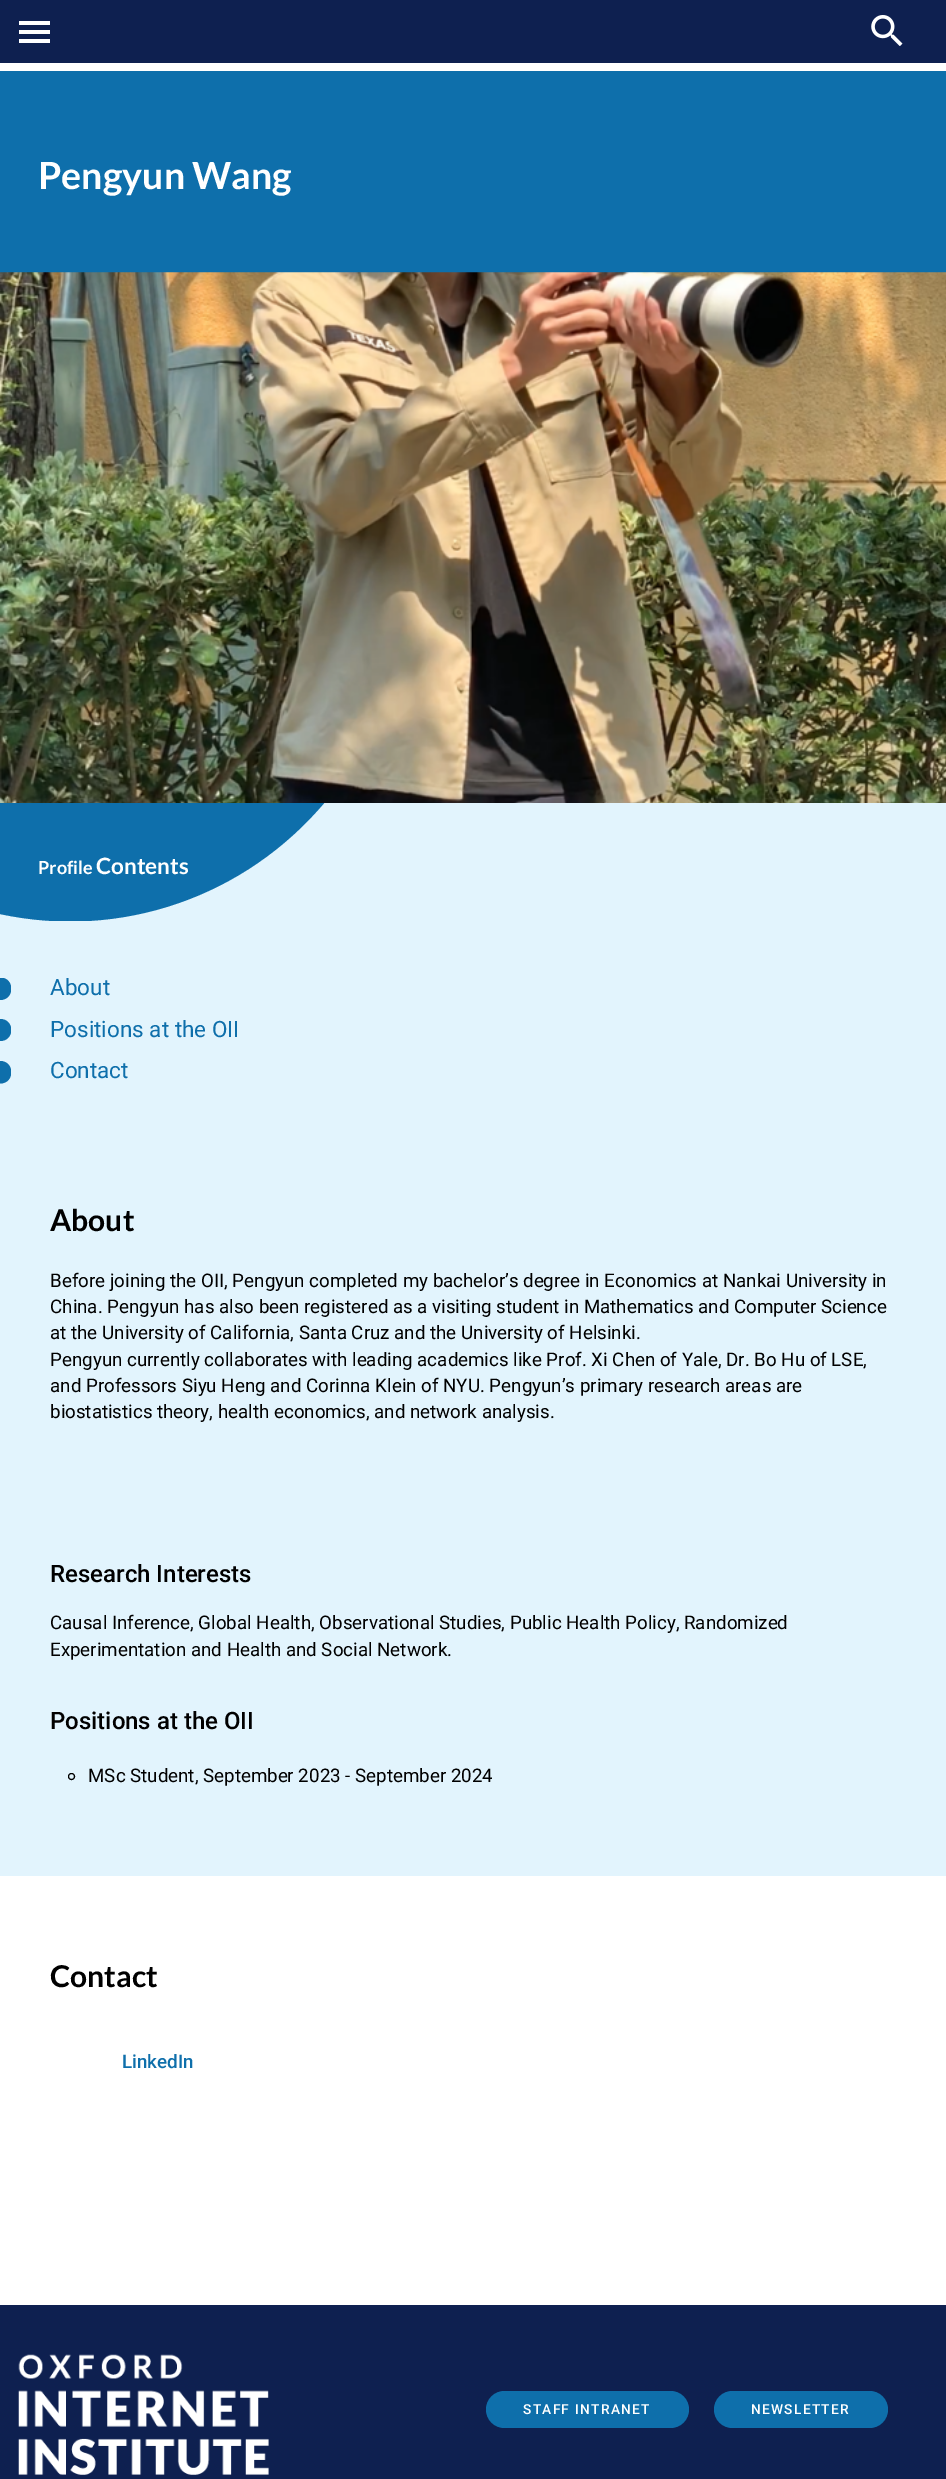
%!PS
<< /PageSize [946 2479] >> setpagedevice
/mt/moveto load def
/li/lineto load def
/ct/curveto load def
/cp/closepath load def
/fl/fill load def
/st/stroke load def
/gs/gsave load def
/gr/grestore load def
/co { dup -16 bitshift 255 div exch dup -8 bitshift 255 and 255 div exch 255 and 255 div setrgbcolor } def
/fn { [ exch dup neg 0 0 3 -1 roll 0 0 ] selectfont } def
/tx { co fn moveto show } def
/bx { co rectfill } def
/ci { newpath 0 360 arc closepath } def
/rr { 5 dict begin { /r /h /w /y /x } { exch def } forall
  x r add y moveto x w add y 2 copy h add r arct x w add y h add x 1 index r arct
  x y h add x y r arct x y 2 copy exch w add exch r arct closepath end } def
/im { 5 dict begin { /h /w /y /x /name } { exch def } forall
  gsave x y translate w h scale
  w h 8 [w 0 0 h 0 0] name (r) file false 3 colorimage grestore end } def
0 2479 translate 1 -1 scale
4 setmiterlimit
0 0 946 2479 16#FFFFFF bx
0 0 946 63 16#0E2050 bx
19 21 31 4 16#FFFFFF bx
19 30 31 4 16#FFFFFF bx
19 39 31 4 16#FFFFFF bx
(media/1.raw) 871 15 32 31 im
0 71 946 202 16#0E6FAB bx
(media/2.raw) 0 272 946 531 im
0 803 946 1073 16#E2F4FD bx
gs
0 803 325 118 rectclip
16#0E6FAB co
0 802 mt 0 914 li 121 940 245 897 325 802 ct cp fl
gr
gs
0 978 11 22 rectclip
16#0E6FAB co
0 977.5 mt 0 1000 li 15 1000 15 977.5 0 977.5 ct cp fl
gr
gs
0 1019 11 22 rectclip
16#0E6FAB co
0 1019 mt 0 1041 li 15 1041 15 1019 0 1019 ct cp fl
gr
gs
0 1061 11 23 rectclip
16#0E6FAB co
0 1061 mt 0 1083.5 li 15 1083.5 15 1061 0 1061 ct cp fl
gr
16#000000 co
71.5 1776.5 3 ci st
0 2305 946 174 16#0E2050 bx
(media/3.raw) 18 2354 251 121 im
16#0E6FAB co
486 2391 203 37 18.5 rr fl
714 2391 174 37 18.5 rr fl
(Pengyun Wang) 38 189 /Lato-Bold 37.5 16#FFFFFF tx
(Profile) 38 874 /Lato-Bold 18 16#FFFFFF tx
(Contents) 96 874 /Lato-Bold 22.5 16#FFFFFF tx
(About) 50 995 /Roboto-Regular 22.5 16#0E6FAB tx
(Positions at the OII) 50 1037 /Roboto-Regular 22.5 16#0E6FAB tx
(Contact) 50 1078 /Roboto-Regular 22.5 16#0E6FAB tx
(About) 50 1231 /Lato-Bold 30 16#000000 tx
(Before joining the OII, Pengyun completed my bachelor’s degree in Economics at Nankai University in) 50 1287 /Roboto-Regular 18.75 16#000000 tx
(China. Pengyun has also been registered as a visiting student in Mathematics and Computer Science) 50 1313 /Roboto-Regular 18.75 16#000000 tx
(at the University of California, Santa Cruz and the University of Helsinki.) 50 1339 /Roboto-Regular 18.75 16#000000 tx
(Pengyun currently collaborates with leading academics like Prof. Xi Chen of Yale, Dr. Bo Hu of LSE,) 50 1366 /Roboto-Regular 18.75 16#000000 tx
(and Professors Siyu Heng and Corinna Klein of NYU. Pengyun’s primary research areas are) 50 1392 /Roboto-Regular 18.75 16#000000 tx
(biostatistics theory, health economics, and network analysis.) 50 1418 /Roboto-Regular 18.75 16#000000 tx
(Research Interests) 50 1582 /Roboto-Medium 24 16#000000 tx
(Causal Inference, Global Health, Observational Studies, Public Health Policy, Randomized) 50 1629 /Roboto-Regular 18.75 16#000000 tx
(Experimentation and Health and Social Network.) 50 1656 /Roboto-Regular 18.75 16#000000 tx
(Positions at the OII) 50 1729 /Roboto-Medium 24 16#000000 tx
(MSc Student, September 2023 - September 2024) 88 1782 /Roboto-Regular 18.75 16#000000 tx
(Contact) 50 1987 /Lato-Bold 30 16#000000 tx
(LinkedIn) 122 2068 /Roboto-Medium 18.75 16#0E6FAB tx
/Roboto-Medium 13.75 fn
16#FFFFFF co
523 2414 mt 1.25 0 (STAFF INTRANET) ashow
751 2414 mt 1.25 0 (NEWSLETTER) ashow
showpage
